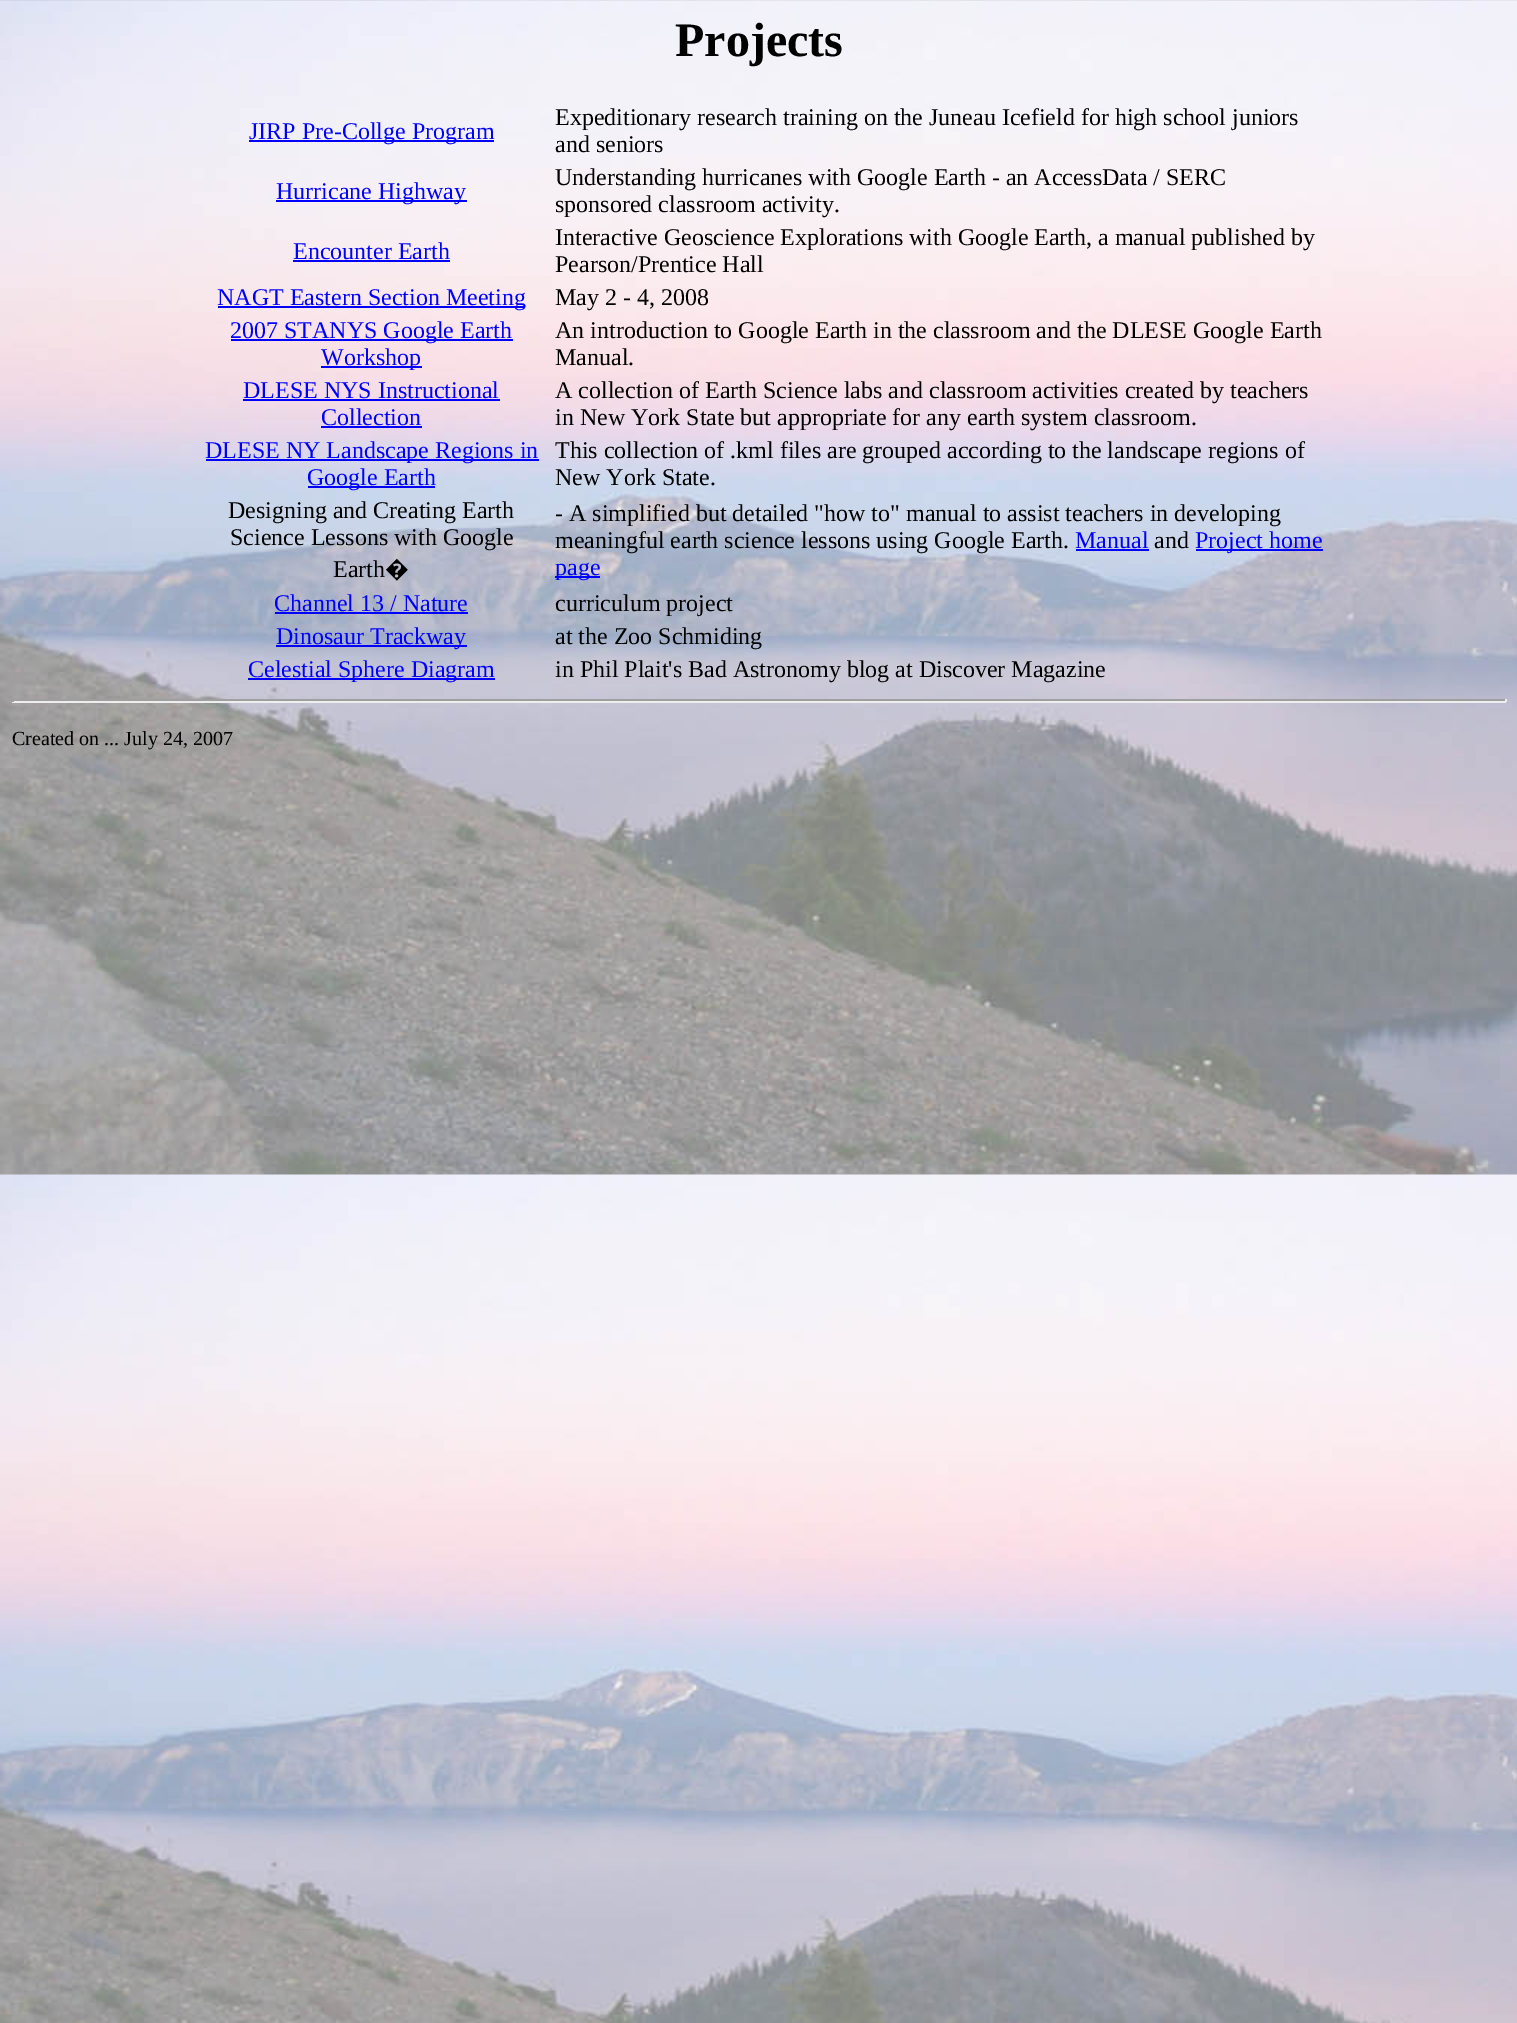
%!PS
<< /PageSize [1517 2023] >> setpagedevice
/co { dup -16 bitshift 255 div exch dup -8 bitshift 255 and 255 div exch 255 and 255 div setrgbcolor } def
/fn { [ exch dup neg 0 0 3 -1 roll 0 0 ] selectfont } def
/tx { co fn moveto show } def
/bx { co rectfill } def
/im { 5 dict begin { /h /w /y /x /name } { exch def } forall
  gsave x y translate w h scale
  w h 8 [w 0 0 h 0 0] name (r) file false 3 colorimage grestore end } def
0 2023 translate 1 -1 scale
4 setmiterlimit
0 0 1517 2023 16#FFFFFF bx
(media/1.raw) 0 0 1517 2023 im
249 140 245 2 16#0000FF bx
276 200 191 2 16#0000FF bx
293 260 157 2 16#0000FF bx
218 306 307 2 16#0000FF bx
231 339 282 2 16#0000FF bx
321 366 101 2 16#0000FF bx
243 399 257 2 16#0000FF bx
321 426 101 2 16#0000FF bx
206 459 333 2 16#0000FF bx
308 486 127 2 16#0000FF bx
1076 549 73 2 16#0000FF bx
1196 549 127 2 16#0000FF bx
555 576 45 2 16#0000FF bx
275 612 193 2 16#0000FF bx
276 645 191 2 16#0000FF bx
248 678 247 2 16#0000FF bx
12 699 1494 2 16#9F9F9F bx
1505 699 2 3 16#EEEEEE bx
12 701 1494 2 16#EEEEEE bx
12 699 2 3 16#9F9F9F bx
(Projects) 675 56 /LiberationSerif-Bold 48 16#000000 tx
(JIRP Pre-Collge Program) 249 139 /LiberationSerif-Regular 24 16#0000FF tx
(Expeditionary research training on the Juneau Icefield for high school juniors) 555 125 /LiberationSerif-Regular 24 16#000000 tx
(and seniors) 555 152 /LiberationSerif-Regular 24 16#000000 tx
(Hurricane Highway) 276 199 /LiberationSerif-Regular 24 16#0000FF tx
(Understanding hurricanes with Google Earth - an AccessData / SERC) 555 185 /LiberationSerif-Regular 24 16#000000 tx
(sponsored classroom activity.) 555 212 /LiberationSerif-Regular 24 16#000000 tx
(Encounter Earth) 293 259 /LiberationSerif-Regular 24 16#0000FF tx
(Interactive Geoscience Explorations with Google Earth, a manual published by) 555 245 /LiberationSerif-Regular 24 16#000000 tx
(Pearson/Prentice Hall) 555 272 /LiberationSerif-Regular 24 16#000000 tx
(NAGT Eastern Section Meeting) 217 305 /LiberationSerif-Regular 24 16#0000FF tx
(May 2 - 4, 2008) 555 305 /LiberationSerif-Regular 24 16#000000 tx
(2007 STANYS Google Earth) 230 338 /LiberationSerif-Regular 24 16#0000FF tx
(Workshop) 321 365 /LiberationSerif-Regular 24 16#0000FF tx
(An introduction to Google Earth in the classroom and the DLESE Google Earth) 555 338 /LiberationSerif-Regular 24 16#000000 tx
(Manual.) 555 365 /LiberationSerif-Regular 24 16#000000 tx
(DLESE NYS Instructional) 243 398 /LiberationSerif-Regular 24 16#0000FF tx
(Collection) 321 425 /LiberationSerif-Regular 24 16#0000FF tx
(A collection of Earth Science labs and classroom activities created by teachers) 555 398 /LiberationSerif-Regular 24 16#000000 tx
(in New York State but appropriate for any earth system classroom.) 555 425 /LiberationSerif-Regular 24 16#000000 tx
(DLESE NY Landscape Regions in) 205 458 /LiberationSerif-Regular 24 16#0000FF tx
(Google Earth) 307 485 /LiberationSerif-Regular 24 16#0000FF tx
(This collection of .kml files are grouped according to the landscape regions of) 555 458 /LiberationSerif-Regular 24 16#000000 tx
(New York State.) 555 485 /LiberationSerif-Regular 24 16#000000 tx
(Designing and Creating Earth) 228 518 /LiberationSerif-Regular 24 16#000000 tx
(Science Lessons with Google) 230 545 /LiberationSerif-Regular 24 16#000000 tx
(Earth) 333 577 /LiberationSerif-Regular 24 16#000000 tx
(�) 385 577 /NotoSans-Regular 24 16#000000 tx
(- A simplified but detailed "how to" manual to assist teachers in developing) 555 521 /LiberationSerif-Regular 24 16#000000 tx
(meaningful earth science lessons using Google Earth.) 555 548 /LiberationSerif-Regular 24 16#000000 tx
(Manual) 1075 548 /LiberationSerif-Regular 24 16#0000FF tx
(and) 1154 548 /LiberationSerif-Regular 24 16#000000 tx
(Project home) 1195 548 /LiberationSerif-Regular 24 16#0000FF tx
(page) 555 575 /LiberationSerif-Regular 24 16#0000FF tx
(Channel 13 / Nature) 274 611 /LiberationSerif-Regular 24 16#0000FF tx
(curriculum project) 555 611 /LiberationSerif-Regular 24 16#000000 tx
(Dinosaur Trackway) 276 644 /LiberationSerif-Regular 24 16#0000FF tx
(at the Zoo Schmiding) 555 644 /LiberationSerif-Regular 24 16#000000 tx
(Celestial Sphere Diagram) 248 677 /LiberationSerif-Regular 24 16#0000FF tx
(in Phil Plait's Bad Astronomy blog at Discover Magazine) 555 677 /LiberationSerif-Regular 24 16#000000 tx
(Created on ... July 24, 2007) 12 745 /LiberationSerif-Regular 20 16#000000 tx
showpage
